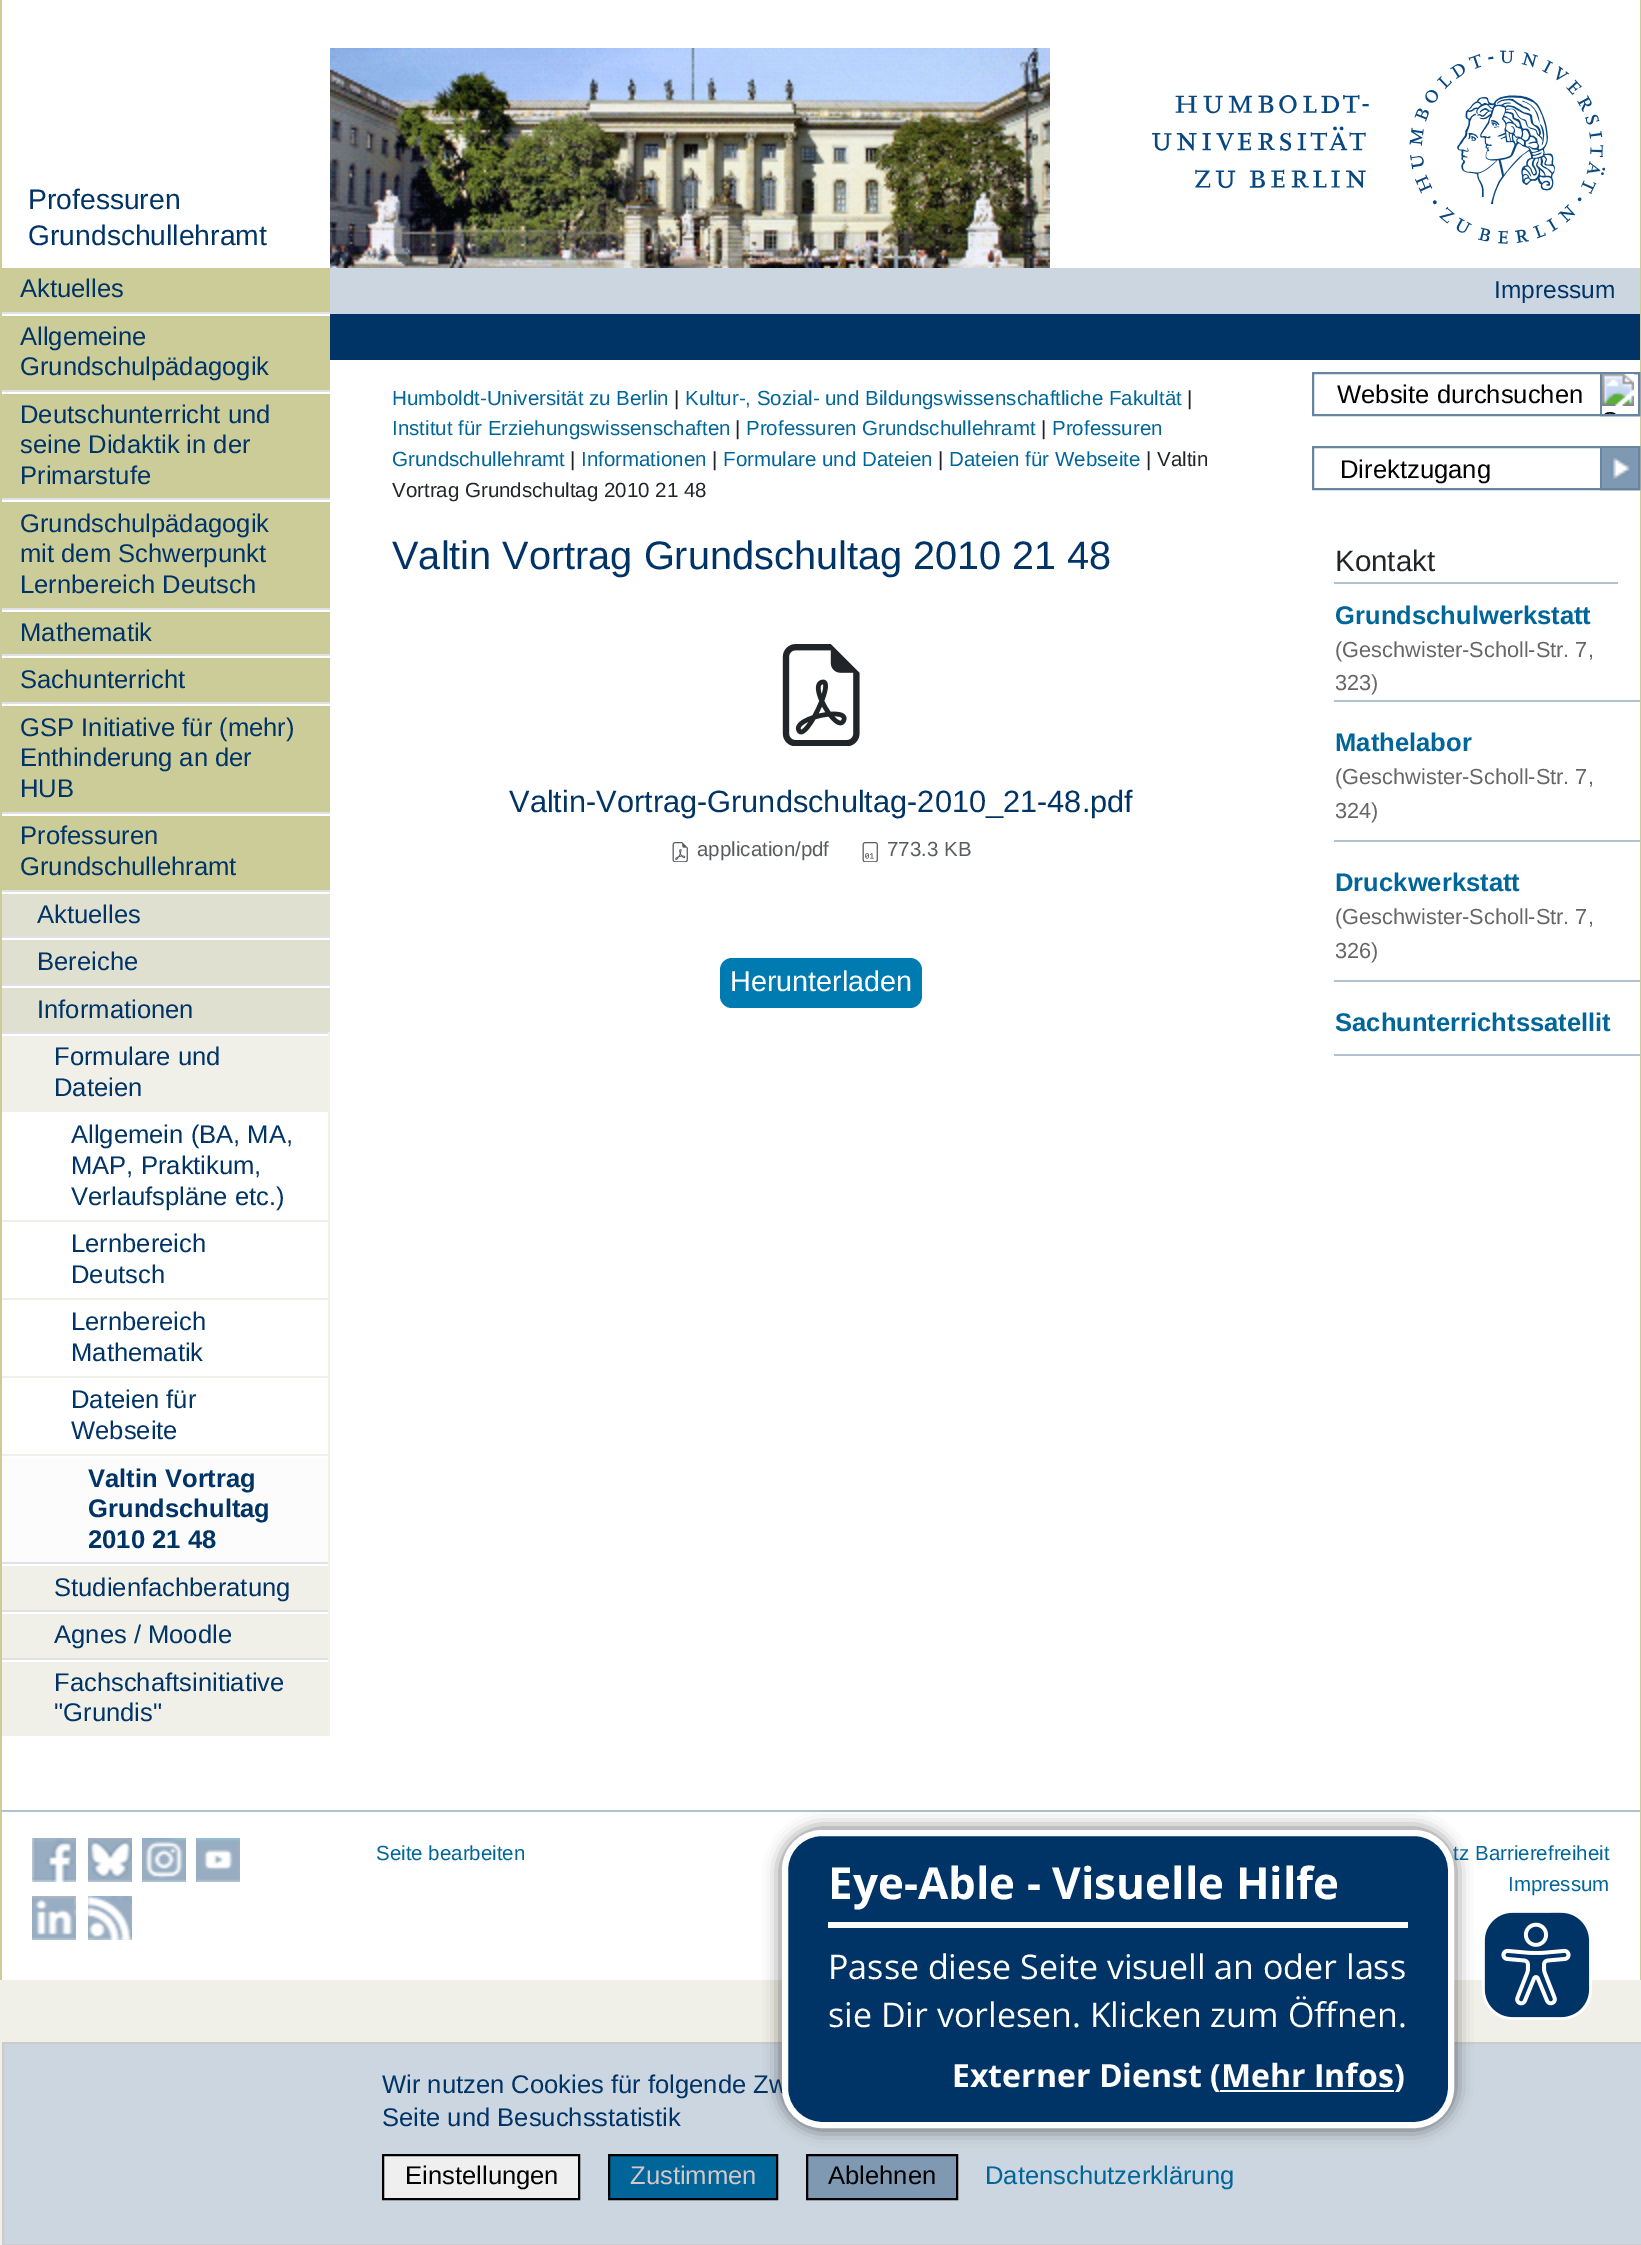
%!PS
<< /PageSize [1641 2245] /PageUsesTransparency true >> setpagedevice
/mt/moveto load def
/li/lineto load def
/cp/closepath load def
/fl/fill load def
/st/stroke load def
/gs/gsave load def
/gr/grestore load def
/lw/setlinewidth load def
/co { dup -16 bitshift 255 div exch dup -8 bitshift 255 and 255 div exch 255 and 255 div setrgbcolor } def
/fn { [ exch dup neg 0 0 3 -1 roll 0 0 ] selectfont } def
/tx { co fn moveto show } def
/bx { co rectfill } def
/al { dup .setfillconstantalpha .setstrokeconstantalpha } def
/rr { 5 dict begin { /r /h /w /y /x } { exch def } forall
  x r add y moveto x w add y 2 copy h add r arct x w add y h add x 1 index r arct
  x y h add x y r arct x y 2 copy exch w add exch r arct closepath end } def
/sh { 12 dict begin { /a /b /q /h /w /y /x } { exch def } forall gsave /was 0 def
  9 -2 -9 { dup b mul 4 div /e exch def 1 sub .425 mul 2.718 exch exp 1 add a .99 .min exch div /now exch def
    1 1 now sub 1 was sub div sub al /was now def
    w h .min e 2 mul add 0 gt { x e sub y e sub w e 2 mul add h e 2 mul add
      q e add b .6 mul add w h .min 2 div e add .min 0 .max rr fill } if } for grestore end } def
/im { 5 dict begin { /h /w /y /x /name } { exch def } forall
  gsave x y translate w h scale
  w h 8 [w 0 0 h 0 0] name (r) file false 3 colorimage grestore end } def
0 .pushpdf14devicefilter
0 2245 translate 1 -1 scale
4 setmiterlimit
0 0 1641 2245 16#F0F0E8 bx
2 0 1638 1980 16#FFFFFF bx
(media/1.raw) 330 48 720 220 im
(media/2.raw) 1152 50 454 194 im
1640 0 1 1980 16#CCCC99 bx
0 0 2 1980 16#CCCC99 bx
2 268 328 44 16#CCCC99 bx
2 316 328 74 16#CCCC99 bx
2 312 328 2 16#DEE2E6 bx
2 394 328 104 16#CCCC99 bx
2 390 328 2 16#DEE2E6 bx
2 502 328 106 16#CCCC99 bx
2 498 328 2 16#DEE2E6 bx
2 612 328 42 16#CCCC99 bx
2 608 328 2 16#DEE2E6 bx
2 658 328 44 16#CCCC99 bx
2 654 328 2 16#DEE2E6 bx
2 706 328 106 16#CCCC99 bx
2 702 328 2 16#DEE2E6 bx
2 816 328 74 16#CCCC99 bx
2 812 328 2 16#DEE2E6 bx
2 894 328 42 16#E0E0D1 bx
2 890 328 2 16#DEE2E6 bx
2 940 328 44 16#E0E0D1 bx
2 936 328 2 16#DEE2E6 bx
2 988 328 44 16#E0E0D1 bx
2 984 328 2 16#DEE2E6 bx
2 1036 326 76 16#F0F0E8 bx
2 1032 328 2 16#DEE2E6 bx
328 1032 2 530 16#F0F0E8 bx
2 1220 326 2 16#F0F0E8 bx
2 1298 326 2 16#F0F0E8 bx
2 1376 326 2 16#F0F0E8 bx
2 1454 326 2 16#F0F0E8 bx
2 1458 326 104 16#FCFCFD bx
2 1566 326 44 16#F0F0E8 bx
2 1562 328 2 16#DEE2E6 bx
328 1562 2 48 16#F0F0E8 bx
2 1614 326 44 16#F0F0E8 bx
2 1610 328 2 16#DEE2E6 bx
328 1610 2 48 16#F0F0E8 bx
2 1662 326 74 16#F0F0E8 bx
2 1658 328 2 16#DEE2E6 bx
328 1658 2 78 16#F0F0E8 bx
330 268 1310 46 16#CCD6E0 bx
330 314 1310 46 16#003366 bx
(media/3.raw) 782 644 78 102 im
(media/4.raw) 672 842 16 20 im
(media/5.raw) 862 842 16 20 im
16#007BB1 co
720 958 202 50 12 rr fl
16#6685A3 co
2 lw
1313 373 326 42 rectstroke
1601 373 38 42 rectstroke
(media/6.raw) 1602 374 32 40 im
1313 447 326 42 rectstroke
1601 447 38 42 rectstroke
(media/7.raw) 1602 448 36 40 im
1334 582 284 2 16#B2C1D1 bx
1334 700 306 2 16#B2C1D1 bx
1334 840 306 2 16#B2C1D1 bx
1334 980 306 2 16#B2C1D1 bx
1334 1054 306 2 16#B2C1D1 bx
2 1810 1638 2 16#B2C1D1 bx
(media/8.raw) 32 1838 44 44 im
(media/9.raw) 88 1838 44 44 im
(media/10.raw) 142 1838 44 44 im
(media/11.raw) 196 1838 44 44 im
(media/12.raw) 32 1896 44 44 im
(media/13.raw) 88 1896 44 44 im
16#CCD6E0 co
3 2043 mt 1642 2043 li 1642 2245 li 3 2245 li cp gs fl gr
16#CCCCCC co
st
16#EFEFEF co
383 2155 mt 579 2155 li 579 2199 li 383 2199 li cp gs fl gr
16#000000 co
st
16#006699 co
609 2155 mt 777 2155 li 777 2199 li 609 2199 li cp gs fl gr
16#000000 co
st
16#8099B2 co
807 2155 mt 957 2155 li 957 2199 li 807 2199 li cp gs fl gr
16#000000 co
st
780 1828 676 302 42 8 .5 sh
(media/14.raw) 1482 1912 110 108 im
(Professuren) 28 209 /LiberationSans-Regular 28.25 16#003366 tx
(Grundschullehramt) 28 245 /LiberationSans-Regular 28.25 16#003366 tx
(Aktuelles) 20 297 /LiberationSans-Regular 25.6 16#003366 tx
(Allgemeine) 20 345 /LiberationSans-Regular 25.6 16#003366 tx
(Grundschulpädagogik) 20 375 /LiberationSans-Regular 25.6 16#003366 tx
(Deutschunterricht und) 20 423 /LiberationSans-Regular 25.6 16#003366 tx
(seine Didaktik in der) 20 453 /LiberationSans-Regular 25.6 16#003366 tx
(Primarstufe) 20 484 /LiberationSans-Regular 25.6 16#003366 tx
(Grundschulpädagogik) 20 532 /LiberationSans-Regular 25.6 16#003366 tx
(mit dem Schwerpunkt) 20 562 /LiberationSans-Regular 25.6 16#003366 tx
(Lernbereich Deutsch) 20 593 /LiberationSans-Regular 25.6 16#003366 tx
(Mathematik) 20 641 /LiberationSans-Regular 25.6 16#003366 tx
(Sachunterricht) 20 688 /LiberationSans-Regular 25.6 16#003366 tx
(GSP Initiative für \(mehr\)) 20 736 /LiberationSans-Regular 25.6 16#003366 tx
(Enthinderung an der) 20 766 /LiberationSans-Regular 25.6 16#003366 tx
(HUB) 20 797 /LiberationSans-Regular 25.6 16#003366 tx
(Professuren) 20 844 /LiberationSans-Regular 25.6 16#003366 tx
(Grundschullehramt) 20 875 /LiberationSans-Regular 25.6 16#003366 tx
(Aktuelles) 37 923 /LiberationSans-Regular 25.6 16#003366 tx
(Bereiche) 37 970 /LiberationSans-Regular 25.6 16#003366 tx
(Informationen) 37 1018 /LiberationSans-Regular 25.6 16#003366 tx
(Formulare und) 54 1065 /LiberationSans-Regular 25.6 16#003366 tx
(Dateien) 54 1096 /LiberationSans-Regular 25.6 16#003366 tx
(Allgemein \(BA, MA,) 71 1143 /LiberationSans-Regular 25.6 16#003366 tx
(MAP, Praktikum,) 71 1174 /LiberationSans-Regular 25.6 16#003366 tx
(Verlaufspläne etc.\)) 71 1205 /LiberationSans-Regular 25.6 16#003366 tx
(Lernbereich) 71 1252 /LiberationSans-Regular 25.6 16#003366 tx
(Deutsch) 71 1283 /LiberationSans-Regular 25.6 16#003366 tx
(Lernbereich) 71 1330 /LiberationSans-Regular 25.6 16#003366 tx
(Mathematik) 71 1361 /LiberationSans-Regular 25.6 16#003366 tx
(Dateien für) 71 1408 /LiberationSans-Regular 25.6 16#003366 tx
(Webseite) 71 1439 /LiberationSans-Regular 25.6 16#003366 tx
(Valtin Vortrag) 88 1487 /LiberationSans-Bold 25.6 16#003366 tx
(Grundschultag) 88 1517 /LiberationSans-Bold 25.6 16#003366 tx
(2010 21 48) 88 1548 /LiberationSans-Bold 25.6 16#003366 tx
(Studienfachberatung) 54 1596 /LiberationSans-Regular 25.6 16#003366 tx
(Agnes / Moodle) 54 1643 /LiberationSans-Regular 25.6 16#003366 tx
(Fachschaftsinitiative) 54 1691 /LiberationSans-Regular 25.6 16#003366 tx
("Grundis") 54 1721 /LiberationSans-Regular 25.6 16#003366 tx
(Impressum) 1494 298 /LiberationSans-Regular 24.5 16#003366 tx
(Humboldt-Universität zu Berlin) 392 405 /LiberationSans-Regular 20.5 16#006699 tx
(|) 674 405 /LiberationSans-Regular 20.5 16#212529 tx
(Kultur-, Sozial- und Bildungswissenschaftliche Fakultät) 685 405 /LiberationSans-Regular 20.5 16#006699 tx
(|) 1187 405 /LiberationSans-Regular 20.5 16#212529 tx
(Institut für Erziehungswissenschaften) 392 435 /LiberationSans-Regular 20.5 16#006699 tx
(|) 735 435 /LiberationSans-Regular 20.5 16#212529 tx
(Professuren Grundschullehramt) 746 435 /LiberationSans-Regular 20.5 16#006699 tx
(|) 1041 435 /LiberationSans-Regular 20.5 16#212529 tx
(Professuren) 1052 435 /LiberationSans-Regular 20.5 16#006699 tx
(Grundschullehramt) 392 466 /LiberationSans-Regular 20.5 16#006699 tx
(|) 570 466 /LiberationSans-Regular 20.5 16#212529 tx
(Informationen) 581 466 /LiberationSans-Regular 20.5 16#006699 tx
(|) 712 466 /LiberationSans-Regular 20.5 16#212529 tx
(Formulare und Dateien) 723 466 /LiberationSans-Regular 20.5 16#006699 tx
(|) 938 466 /LiberationSans-Regular 20.5 16#212529 tx
(Dateien für Webseite) 949 466 /LiberationSans-Regular 20.5 16#006699 tx
(| Valtin) 1146 466 /LiberationSans-Regular 20.5 16#212529 tx
(Vortrag Grundschultag 2010 21 48) 392 497 /LiberationSans-Regular 20.5 16#212529 tx
(Valtin Vortrag Grundschultag 2010 21 48) 392 569 /LiberationSans-Regular 39.7 16#003366 tx
(Valtin-Vortrag-Grundschultag-2010_21-48.pdf) 509 812 /LiberationSans-Regular 30.75 16#003366 tx
(application/pdf) 697 856 /LiberationSans-Regular 20.5 16#595C5F tx
(773.3 KB) 887 856 /LiberationSans-Regular 20.5 16#595C5F tx
(Herunterladen) 730 991 /LiberationSans-Regular 28.75 16#FFFFFF tx
(Website durchsuchen) 1337 403 /LiberationSans-Regular 25.6 16#000000 tx
(Direktzugang) 1340 478 /LiberationSans-Regular 25.6 16#000000 tx
(Kontakt) 1335 571 /LiberationSans-Regular 29.5 16#212529 tx
(Grundschulwerkstatt) 1335 624 /LiberationSans-Bold 25.6 16#006699 tx
(\(Geschwister-Scholl-Str. 7,) 1335 657 /LiberationSans-Regular 21.75 16#666666 tx
(323\)) 1335 690 /LiberationSans-Regular 21.75 16#666666 tx
(Mathelabor) 1335 751 /LiberationSans-Bold 25.6 16#006699 tx
(\(Geschwister-Scholl-Str. 7,) 1335 784 /LiberationSans-Regular 21.75 16#666666 tx
(324\)) 1335 818 /LiberationSans-Regular 21.75 16#666666 tx
(Druckwerkstatt) 1335 891 /LiberationSans-Bold 25.6 16#006699 tx
(\(Geschwister-Scholl-Str. 7,) 1335 924 /LiberationSans-Regular 21.75 16#666666 tx
(326\)) 1335 958 /LiberationSans-Regular 21.75 16#666666 tx
(Sachunterrichtssatellit) 1335 1031 /LiberationSans-Bold 25.6 16#006699 tx
(Seite bearbeiten) 376 1860 /LiberationSans-Regular 20.5 16#006699 tx
(tz) 1453 1860 /LiberationSans-Regular 20.5 16#006699 tx
(Barrierefreiheit) 1475 1860 /LiberationSans-Regular 20.5 16#006699 tx
(Impressum) 1508 1891 /LiberationSans-Regular 20.5 16#006699 tx
(Wir nutzen Cookies für folgende Zw) 382 2093 /LiberationSans-Regular 25.6 16#003366 tx
(Seite und Besuchsstatistik) 382 2126 /LiberationSans-Regular 25.6 16#003366 tx
(Einstellungen) 405 2184 /LiberationSans-Regular 25.6 16#000000 tx
(Zustimmen) 630 2184 /LiberationSans-Regular 25.6 16#D5C7C7 tx
(Ablehnen) 828 2184 /LiberationSans-Regular 25.6 16#000000 tx
(Datenschutzerklärung) 985 2184 /LiberationSans-Regular 25.6 16#006699 tx
16#003366 co
785 1833 666 292 37 rr gs fl gr
16#FFFFFF co
6 lw
st
828 1922 580 6 16#FFFFFF bx
(Eye-Able - Visuelle Hilfe) 828 1899 /OpenSans-Bold 44 16#FFFFFF tx
(Passe diese Seite visuell an oder lass) 828 1979 /OpenSans-Regular 34 16#FFFFFF tx
(sie Dir vorlesen. Klicken zum Öffnen.) 828 2027 /OpenSans-Regular 34 16#FFFFFF tx
(Externer Dienst \(Mehr Infos\)) 952 2087 /OpenSans-Bold 32 16#FFFFFF tx
1220 2090 174 2 16#FFFFFF bx
.poppdf14devicefilter showpage
